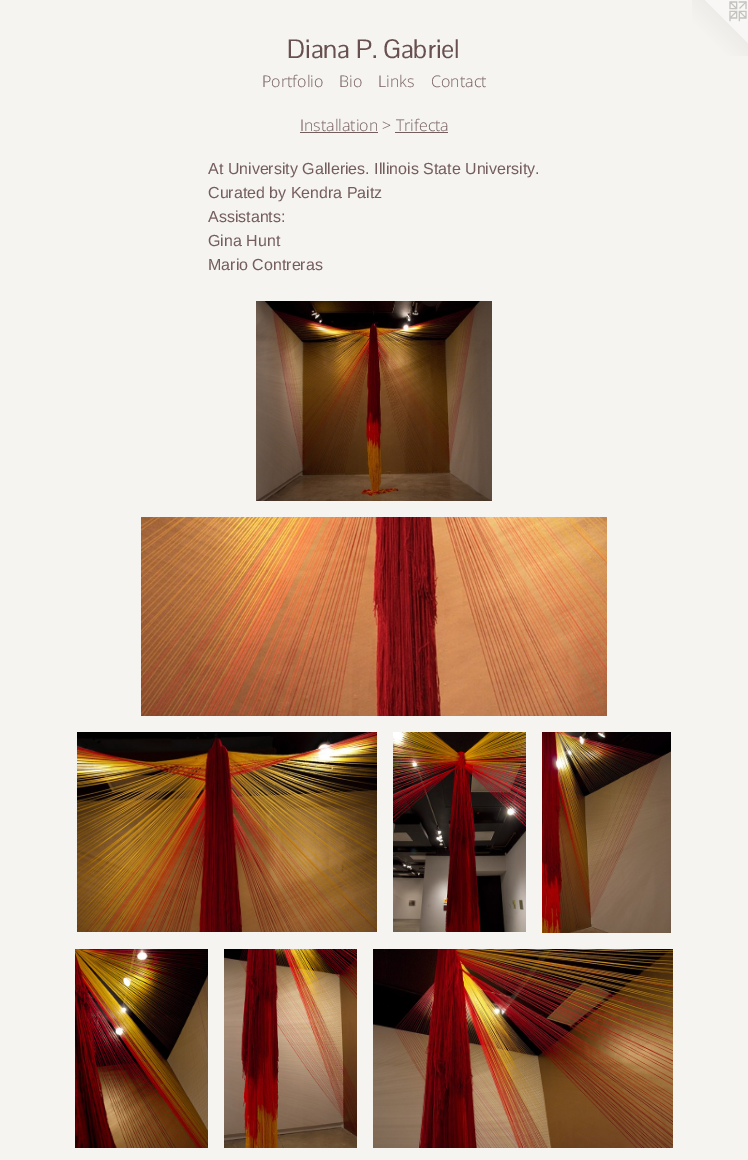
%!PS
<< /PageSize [748 1160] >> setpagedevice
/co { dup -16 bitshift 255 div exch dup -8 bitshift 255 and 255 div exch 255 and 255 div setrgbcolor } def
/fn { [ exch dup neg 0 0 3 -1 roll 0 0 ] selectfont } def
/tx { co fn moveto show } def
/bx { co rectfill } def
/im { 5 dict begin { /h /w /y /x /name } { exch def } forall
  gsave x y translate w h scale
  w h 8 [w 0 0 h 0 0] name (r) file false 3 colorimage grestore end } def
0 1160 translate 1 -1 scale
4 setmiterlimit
0 0 748 1160 16#F5F4F0 bx
(media/1.raw) 692 0 56 56 im
300 132 78 1 16#745D5D bx
395 132 53 1 16#745D5D bx
(media/2.raw) 256 301 236 200 im
(media/3.raw) 141 517 466 199 im
(media/4.raw) 77 732 300 200 im
(media/5.raw) 393 732 133 200 im
(media/6.raw) 542 732 129 201 im
(media/7.raw) 75 949 133 199 im
(media/8.raw) 224 949 133 199 im
(media/9.raw) 373 949 300 199 im
(Diana P. Gabriel) 287 58 /PontanoSans-Regular 26 16#685050 tx
(Portfolio) 262 87 /OpenSans-Light 16 16#745D5D tx
(Bio) 339 87 /OpenSans-Light 16 16#745D5D tx
(Links) 378 87 /OpenSans-Light 16 16#745D5D tx
(Contact) 431 87 /OpenSans-Light 16 16#745D5D tx
(Installation > Trifecta) 300 131 /OpenSans-Light 16 16#745D5D tx
(At University Galleries. Illinois State University.) 208 174 /LiberationSans-Regular 16 16#745D5D tx
(Curated by Kendra Paitz) 208 198 /LiberationSans-Regular 16 16#745D5D tx
(Assistants:) 208 222 /LiberationSans-Regular 16 16#745D5D tx
(Gina Hunt) 208 246 /LiberationSans-Regular 16 16#745D5D tx
(Mario Contreras) 208 270 /LiberationSans-Regular 16 16#745D5D tx
showpage
